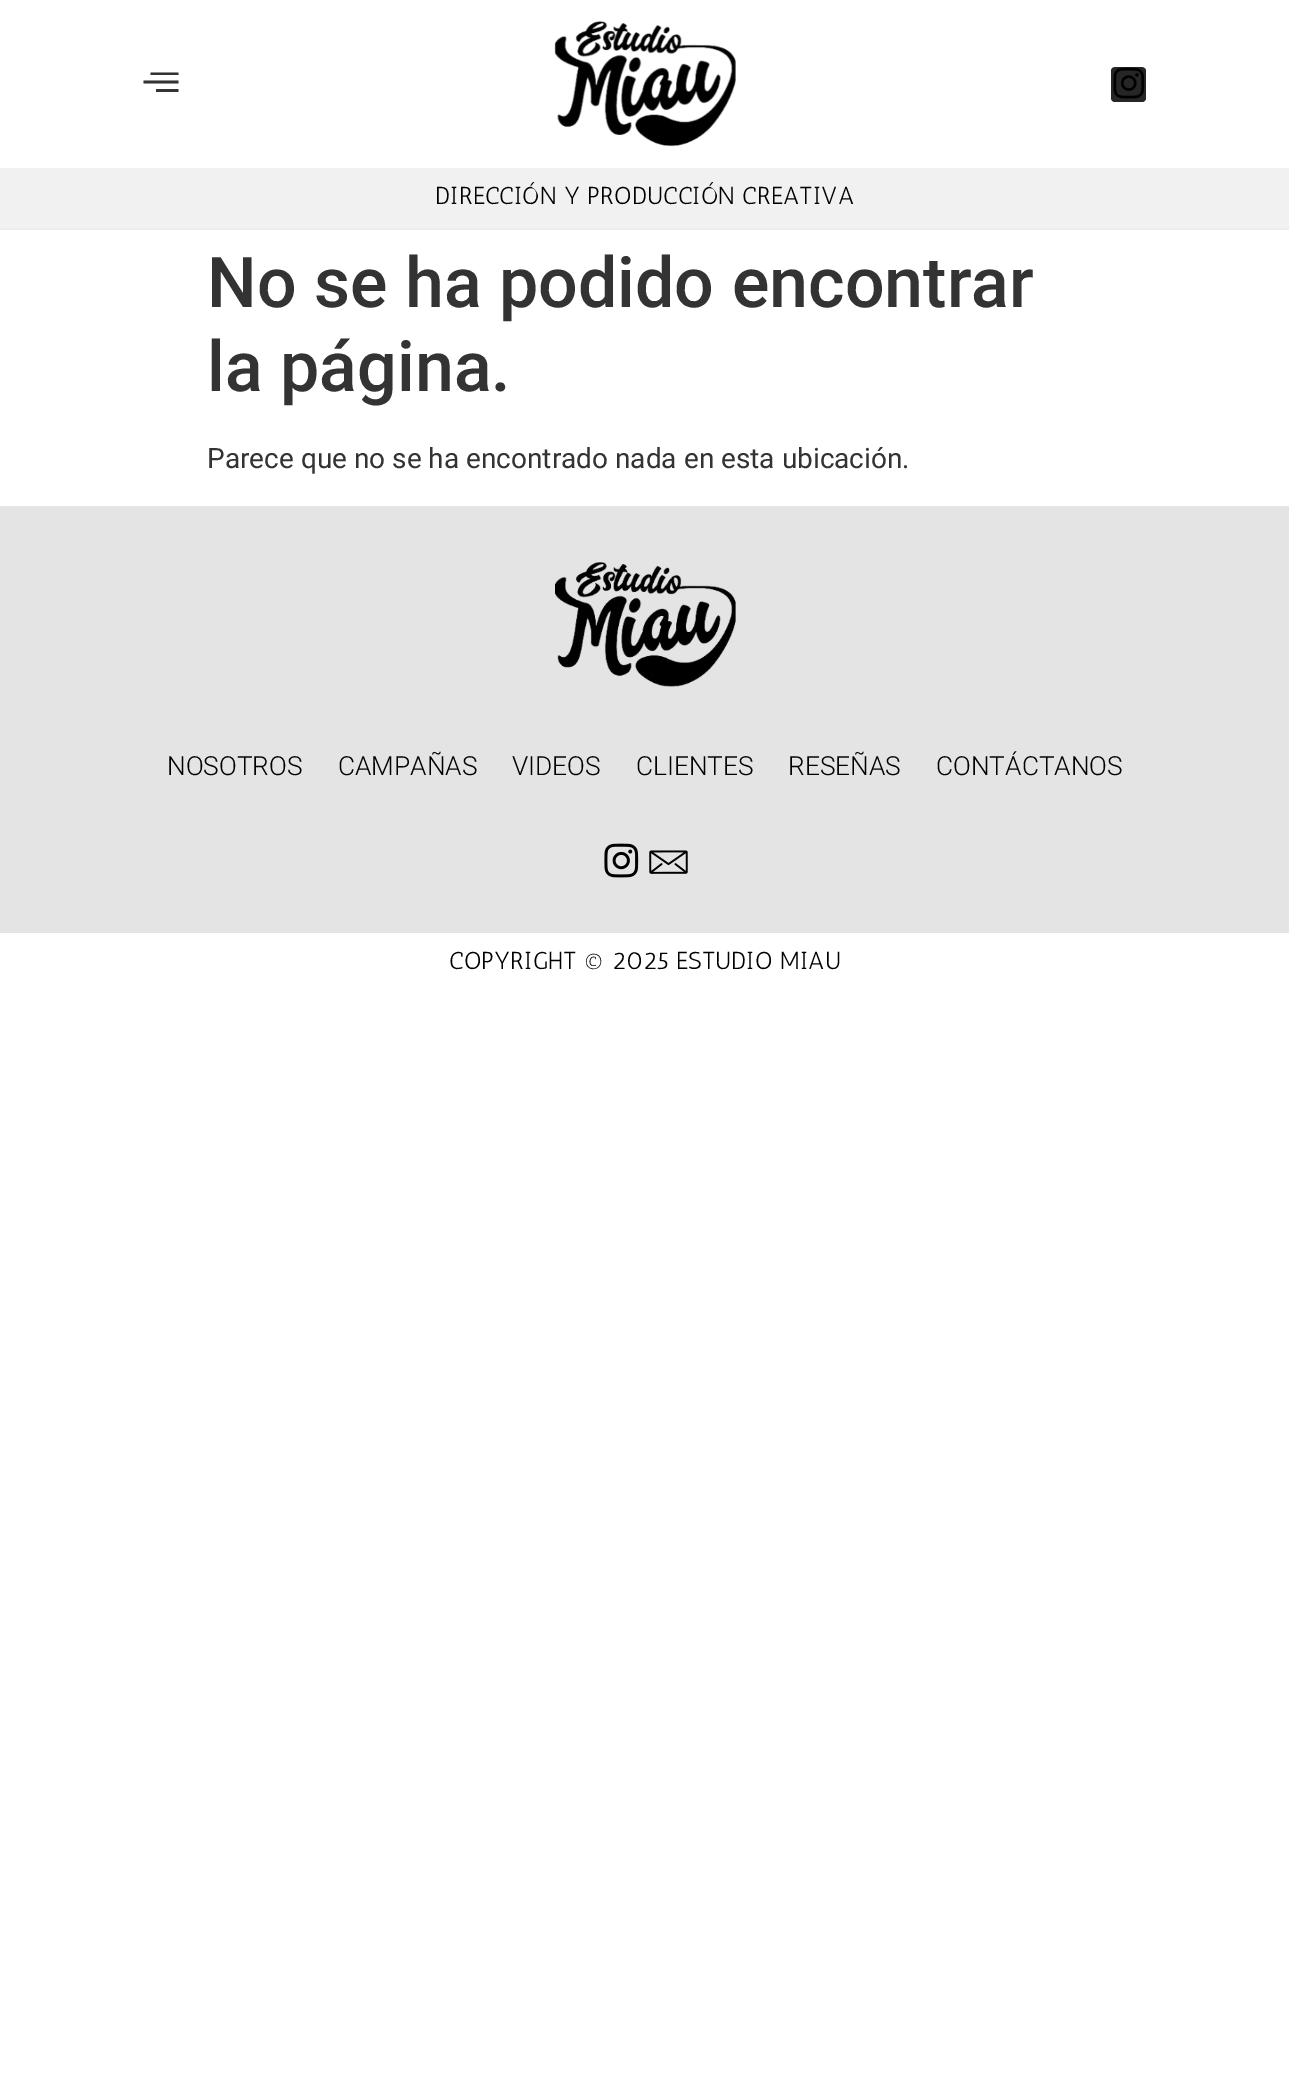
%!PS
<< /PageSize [1289 2094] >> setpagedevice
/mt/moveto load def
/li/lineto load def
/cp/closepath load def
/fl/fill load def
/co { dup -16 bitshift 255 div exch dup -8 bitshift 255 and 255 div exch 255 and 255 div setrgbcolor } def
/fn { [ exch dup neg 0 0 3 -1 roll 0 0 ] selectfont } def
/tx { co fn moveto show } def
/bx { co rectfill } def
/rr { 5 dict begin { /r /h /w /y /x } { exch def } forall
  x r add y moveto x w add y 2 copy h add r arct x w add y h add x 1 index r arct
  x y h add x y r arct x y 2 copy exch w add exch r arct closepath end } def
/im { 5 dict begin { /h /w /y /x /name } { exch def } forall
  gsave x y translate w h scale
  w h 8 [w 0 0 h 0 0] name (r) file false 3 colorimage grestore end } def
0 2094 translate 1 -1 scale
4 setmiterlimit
0 0 1289 2094 16#FFFFFF bx
16#333333 co
143.5 83.5 mt 178.5 83.5 li 178.5 80.5 li 143.5 80.5 li cp 156 92 mt 178.5 92 li 178.5 89 li 156 89 li cp 150.5 72.5 mt 150.5 75 li 178.5 75 li 178.5 72.5 li cp fl
(media/1.raw) 554 21 182 126 im
16#262626 co
1111 67 35 35 4 rr fl
(media/2.raw) 1113 67 32 32 im
0 168 1289 60 16#F1F1F1 bx
0 228 1289 2 16#EDEDED bx
0 506 1289 427 16#E4E4E4 bx
(media/3.raw) 555 562 181 125 im
(media/4.raw) 604 843 35 35 im
(media/5.raw) 649 850 39 24 im
(DIRECCIÓN Y PRODUCCIÓN CREATIVA) 435 204 /Antic-Regular 24.5 16#000000 tx
(No se ha podido encontrar) 207 307 /Roboto-Medium 70 16#333333 tx
(la página.) 207 391 /Roboto-Medium 70 16#333333 tx
(Parece que no se ha encontrado nada en esta ubicación.) 207 468 /Roboto-Regular 28 16#333333 tx
(NOSOTROS) 167 775 /Roboto-Light 26.25 16#000000 tx
(CAMPAÑAS) 338 775 /Roboto-Light 26.25 16#000000 tx
(VIDEOS) 512 775 /Roboto-Light 26.25 16#000000 tx
(CLIENTES) 636 775 /Roboto-Light 26.25 16#000000 tx
(RESEÑAS) 788 775 /Roboto-Light 26.25 16#000000 tx
(CONTÁCTANOS) 936 775 /Roboto-Light 26.25 16#000000 tx
(COPYRIGHT © 2025 ESTUDIO MIAU) 449 969 /Antic-Regular 24.5 16#000000 tx
showpage
